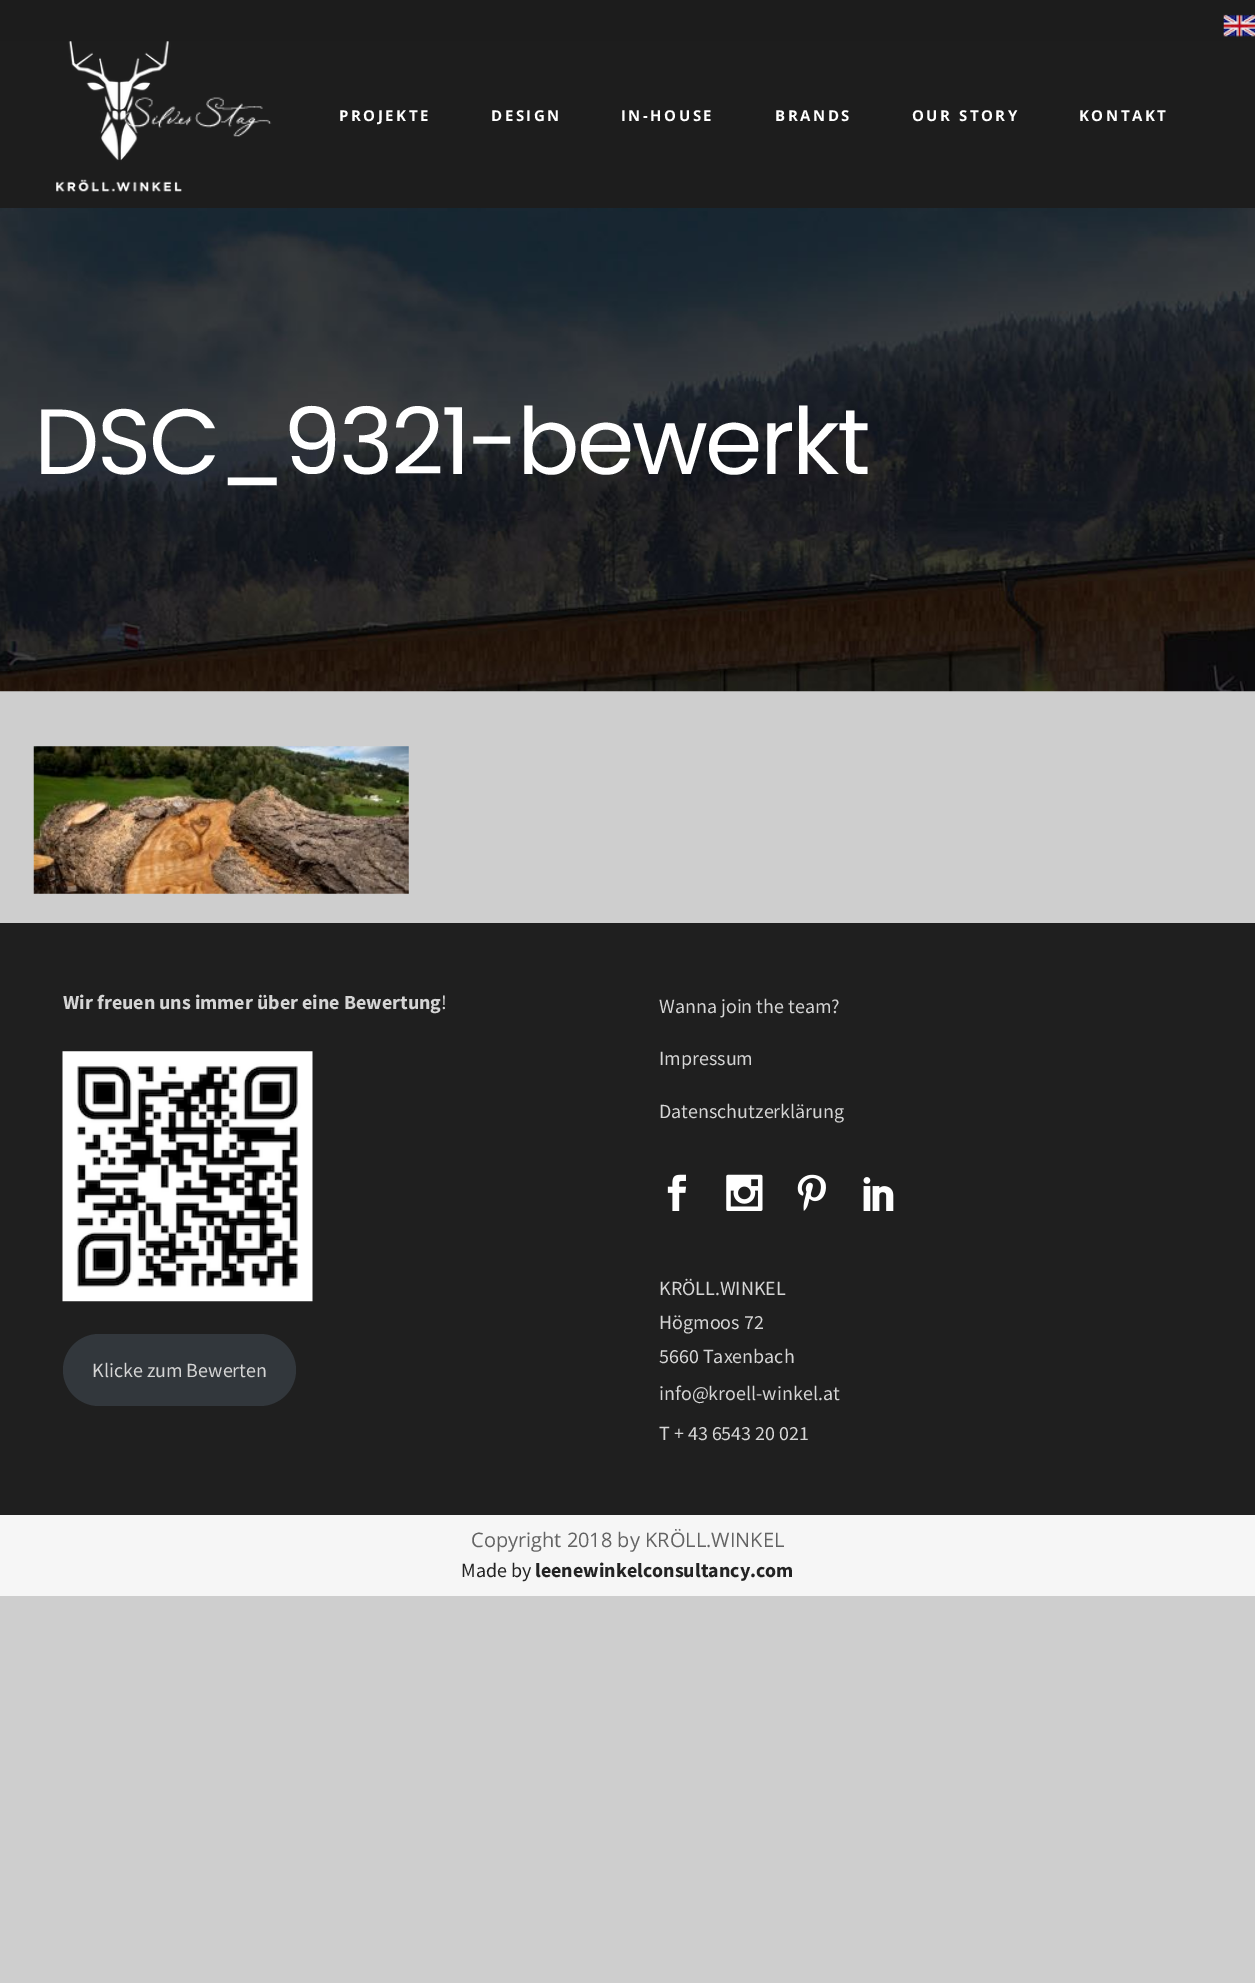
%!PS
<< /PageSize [1255 1983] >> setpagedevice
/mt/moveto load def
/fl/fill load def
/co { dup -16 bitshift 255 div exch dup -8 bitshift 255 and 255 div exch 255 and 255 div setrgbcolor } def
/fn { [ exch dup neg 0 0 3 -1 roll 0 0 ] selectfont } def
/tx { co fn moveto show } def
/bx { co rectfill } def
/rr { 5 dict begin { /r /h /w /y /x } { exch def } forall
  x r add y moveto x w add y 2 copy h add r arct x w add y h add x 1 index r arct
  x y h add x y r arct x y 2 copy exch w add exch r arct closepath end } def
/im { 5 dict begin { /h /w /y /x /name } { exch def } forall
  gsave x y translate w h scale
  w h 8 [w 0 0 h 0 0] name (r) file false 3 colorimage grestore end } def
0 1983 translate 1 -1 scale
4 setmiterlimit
0 0 1255 1983 16#CECECE bx
0 0 1255 41 16#1C1C1C bx
(media/1.raw) 1223 14 32 23 im
0 41 1255 167 16#1D1D1D bx
(media/2.raw) 56 41 126 151 im
(media/3.raw) 123 97 149 40 im
(media/4.raw) 0 208 1255 484 im
(media/5.raw) 33 746 376 148 im
0 923 1255 592 16#1F1F1F bx
(media/6.raw) 62 1051 251 251 im
16#32373C co
63 1334 233 72 36 rr fl
(media/7.raw) 667 1174 19 37 im
(media/8.raw) 726 1174 37 37 im
(media/9.raw) 797 1174 29 37 im
(media/10.raw) 863 1177 31 34 im
0 1515 1255 81 16#F6F6F6 bx
/OpenSans-Bold 15 fn
16#FFFFFF co
339 121 mt 2.5 0 (PROJEKTE) ashow
491 121 mt 2.5 0 (DESIGN) ashow
621 121 mt 2.5 0 (IN-HOUSE) ashow
775 121 mt 2.5 0 (BRANDS) ashow
912 121 mt 2.5 0 (OUR STORY) ashow
1079 121 mt 2.5 0 (KONTAKT) ashow
/Poppins-Regular 92.5 fn
34 474 mt -2.5 0 (DSC_9321-bewerkt) ashow
(Wir freuen uns immer über eine Bewertung) 63 1009 /SourceSansPro-Bold 20 16#D5D5D5 tx
(!) 441 1009 /SourceSansPro-Regular 20 16#D5D5D5 tx
(Klicke zum Bewerten) 92 1377 /SourceSansPro-Regular 20 16#D5D5D5 tx
(Wanna join the team?) 659 1013 /SourceSansPro-Regular 20 16#D5D5D5 tx
(Impressum) 659 1065 /SourceSansPro-Regular 20 16#D5D5D5 tx
(Datenschutzerklärung) 659 1118 /SourceSansPro-Regular 20 16#D5D5D5 tx
(KRÖLL.WINKEL) 659 1295 /SourceSansPro-Regular 20 16#D5D5D5 tx
(Högmoos 72) 659 1329 /SourceSansPro-Regular 20 16#D5D5D5 tx
(5660 Taxenbach) 659 1363 /SourceSansPro-Regular 20 16#D5D5D5 tx
(info@kroell-winkel.at) 659 1400 /SourceSansPro-Regular 20 16#D5D5D5 tx
(T + 43 6543 20 021) 659 1440 /SourceSansPro-Regular 20 16#D5D5D5 tx
(Copyright 2018 by KRÖLL.WINKEL) 471 1547 /OpenSans-Regular 20 16#636363 tx
(Made by) 461 1577 /SourceSansPro-Regular 20 16#232323 tx
(leenewinkelconsultancy.com) 535 1577 /SourceSansPro-Bold 20 16#232323 tx
showpage
